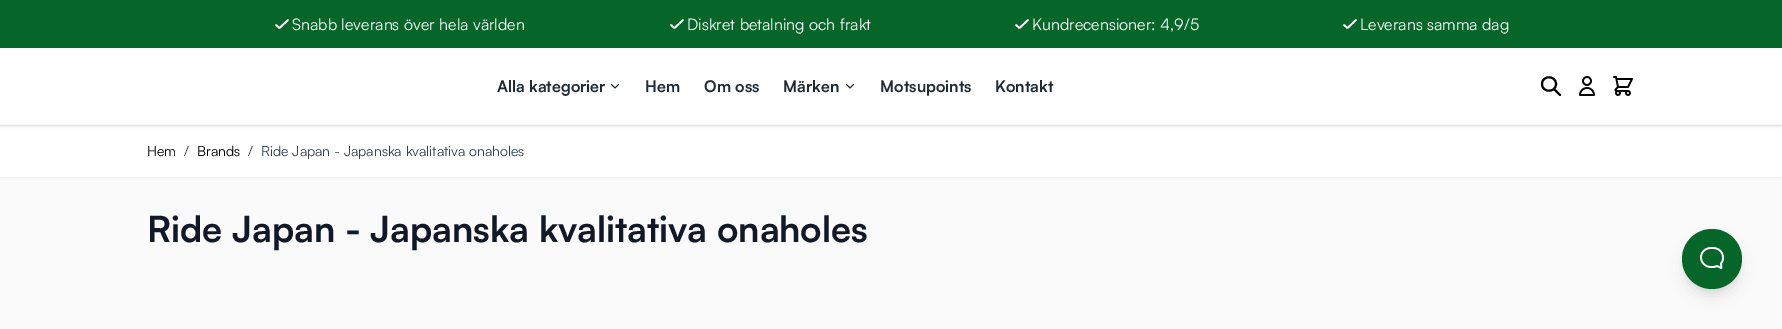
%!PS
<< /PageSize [1782 329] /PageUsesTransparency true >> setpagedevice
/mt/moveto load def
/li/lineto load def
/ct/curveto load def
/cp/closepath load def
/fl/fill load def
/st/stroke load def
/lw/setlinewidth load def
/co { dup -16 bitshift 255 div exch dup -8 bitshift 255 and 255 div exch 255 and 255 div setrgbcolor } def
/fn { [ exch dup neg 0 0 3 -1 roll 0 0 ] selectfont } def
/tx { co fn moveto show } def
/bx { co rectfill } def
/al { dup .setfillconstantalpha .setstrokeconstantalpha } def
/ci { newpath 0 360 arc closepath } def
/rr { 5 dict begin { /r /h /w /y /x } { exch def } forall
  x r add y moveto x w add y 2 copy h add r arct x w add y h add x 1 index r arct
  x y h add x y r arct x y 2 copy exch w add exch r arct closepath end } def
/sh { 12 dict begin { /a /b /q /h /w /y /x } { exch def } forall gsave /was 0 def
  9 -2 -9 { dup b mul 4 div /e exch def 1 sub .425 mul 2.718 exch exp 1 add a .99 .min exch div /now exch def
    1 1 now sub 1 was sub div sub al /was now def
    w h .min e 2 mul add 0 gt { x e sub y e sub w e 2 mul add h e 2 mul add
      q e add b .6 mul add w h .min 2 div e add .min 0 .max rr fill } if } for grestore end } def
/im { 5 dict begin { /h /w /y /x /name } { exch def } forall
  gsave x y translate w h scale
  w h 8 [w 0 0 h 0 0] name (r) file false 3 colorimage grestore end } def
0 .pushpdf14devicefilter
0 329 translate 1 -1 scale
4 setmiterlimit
0 0 1782 329 16#FAFAFA bx
0 0 1782 48 16#066528 bx
16#FFFFFF co
1.7 lw
1 setlinecap
1 setlinejoin
276 25 mt 279.5 28 li 288 20 li st
671 25 mt 674.5 28 li 683 20 li st
1016 25 mt 1019.5 28 li 1028 20 li st
1344 25 mt 1347.5 28 li 1356 20 li st
16#000000 co
0 126 1782 52 0 1 .05 sh
0 125 1782 52 16#FFFFFF bx
16#000000 co
1 50 1780 75 0 1 .1 sh
0 49 1782 77 0 1.5 .1 sh
0 48 1782 76 16#FFFFFF bx
0 124 1782 1 16#F5F5F5 bx
16#212B36 co
1 lw
618.5 84.5 mt 615 88 li 611.5 84.5 li st
853.5 84.5 mt 850 88 li 846.5 84.5 li st
16#000000 co
2 lw
1560 95 mt 1554 89 li 1556 84 mt 1556 93 1542 93 1542 84 ct 1542 75 1556 75 1556 84 ct cp st
(media/1.raw) 1579 76 16 20 im
(media/2.raw) 1613 76 20 20 im
1686 237 52 52 26 3 .1 sh
1685 242 54 54 27 7.5 .1 sh
16#066528 co
1712 259 30 ci fl
(media/3.raw) 1700 247 24 22 im
(Snabb leverans över hela världen) 292 30 /Satoshi-Regular 16 16#FFFFFF tx
(Diskret betalning och frakt) 687 30 /Satoshi-Regular 16 16#FFFFFF tx
(Kundrecensioner: 4,9/5) 1032 30 /Satoshi-Regular 16 16#FFFFFF tx
(Leverans samma dag) 1360 30 /Satoshi-Regular 16 16#FFFFFF tx
(Alla kategorier) 497 92 /Satoshi-Bold 16 16#212B36 tx
(Hem) 645 92 /Satoshi-Bold 16 16#212B36 tx
(Om oss) 704 92 /Satoshi-Bold 16 16#212B36 tx
(Märken) 783 92 /Satoshi-Bold 16 16#212B36 tx
(Motsupoints) 880 92 /Satoshi-Bold 16 16#212B36 tx
(Kontakt) 995 92 /Satoshi-Bold 16 16#212B36 tx
(Hem) 147 156 /Satoshi-Regular 14 16#000000 tx
(/) 184 156 /Satoshi-Regular 14 16#374151 tx
(Brands) 197 156 /Satoshi-Regular 14 16#000000 tx
(/) 248 156 /Satoshi-Regular 14 16#374151 tx
(Ride Japan - Japanska kvalitativa onaholes) 261 156 /Satoshi-Regular 14 16#374151 tx
(Ride Japan - Japanska kvalitativa onaholes) 147 242 /Satoshi-Bold 36 16#111827 tx
.poppdf14devicefilter showpage
